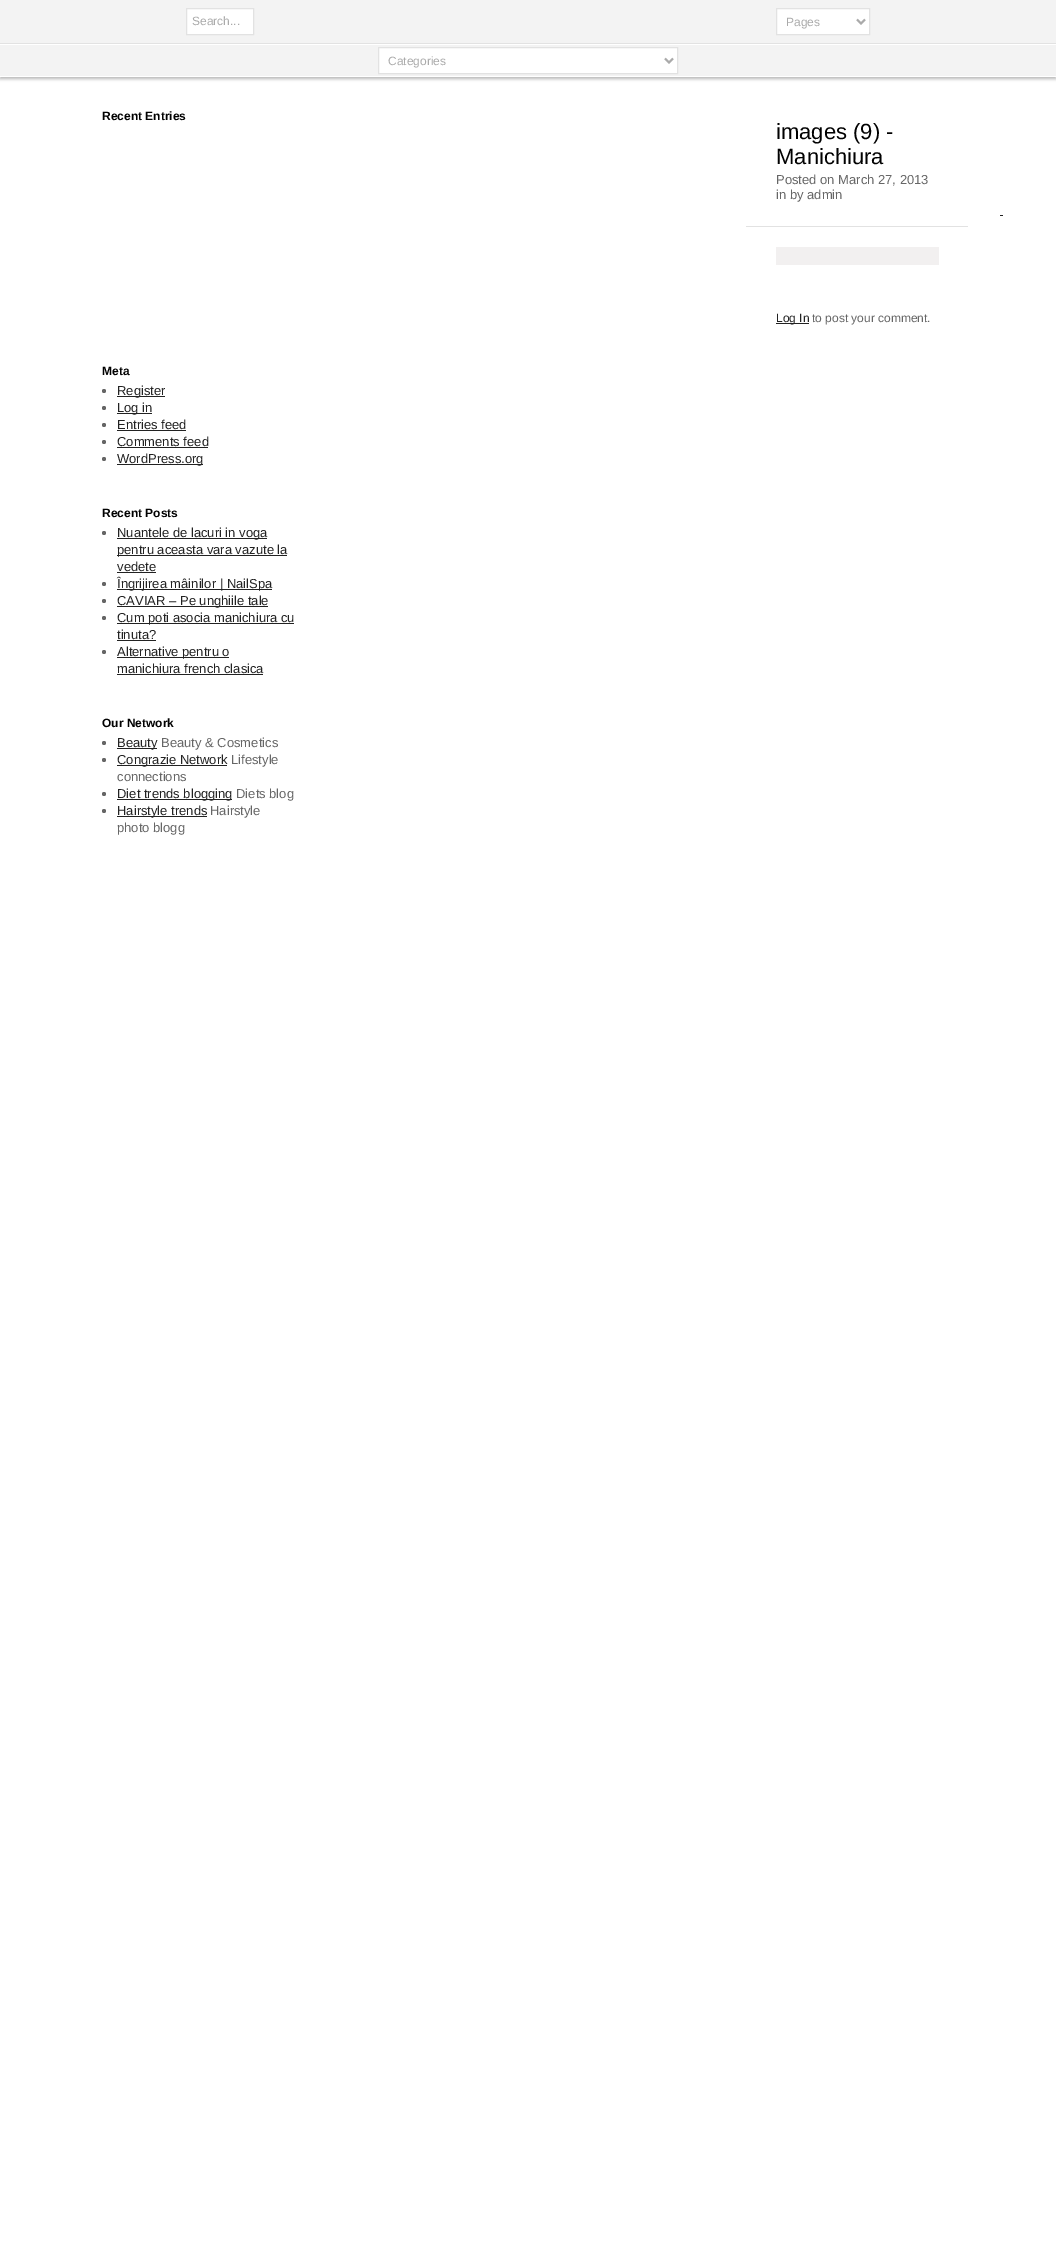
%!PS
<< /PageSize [1056 2247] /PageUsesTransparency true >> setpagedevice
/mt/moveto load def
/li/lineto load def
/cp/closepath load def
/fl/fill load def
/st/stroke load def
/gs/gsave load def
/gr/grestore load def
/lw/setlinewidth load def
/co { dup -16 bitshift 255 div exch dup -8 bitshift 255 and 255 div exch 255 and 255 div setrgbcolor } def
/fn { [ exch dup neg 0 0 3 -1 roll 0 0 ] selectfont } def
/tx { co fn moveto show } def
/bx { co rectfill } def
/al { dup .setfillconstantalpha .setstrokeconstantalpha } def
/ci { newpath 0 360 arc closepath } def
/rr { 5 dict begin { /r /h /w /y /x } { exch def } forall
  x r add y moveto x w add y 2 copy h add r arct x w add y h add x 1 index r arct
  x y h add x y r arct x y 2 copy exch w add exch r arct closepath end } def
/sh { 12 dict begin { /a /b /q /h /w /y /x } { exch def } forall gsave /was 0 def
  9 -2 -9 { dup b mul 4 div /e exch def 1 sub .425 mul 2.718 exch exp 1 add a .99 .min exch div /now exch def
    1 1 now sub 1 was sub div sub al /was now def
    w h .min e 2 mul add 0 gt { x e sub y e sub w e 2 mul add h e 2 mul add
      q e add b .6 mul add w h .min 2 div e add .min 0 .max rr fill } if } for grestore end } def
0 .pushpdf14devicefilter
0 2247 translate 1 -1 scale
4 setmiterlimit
0 0 1056 2247 16#FFFFFF bx
16#BABABA co
0 46 1056 33 0 1.5 1 sh
0 0 1056 43 16#F3F3F3 bx
0 43 1056 1 16#E2E2E2 bx
16#FFFFFF co
186.5 8.5 mt 253.5 8.5 li 253.5 34.5 li 186.5 34.5 li cp gs fl gr
16#E2E2E2 co
st
16#FFFFFF co
776.5 8.5 mt 869.5 8.5 li 869.5 34.5 li 776.5 34.5 li cp gs fl gr
16#E2E2E2 co
st
16#AAAAAA co
2 lw
857 19.5 mt 861 23.5 li 865 19.5 li st
0 45 1056 31 16#F3F3F3 bx
0 44 1056 1 16#FFFFFF bx
0 76 1056 1 16#FFFFFF bx
378.5 47.5 mt 677.5 47.5 li 677.5 73.5 li 378.5 73.5 li cp gs fl gr
16#E2E2E2 co
1 lw
st
16#AAAAAA co
2 lw
665 58.5 mt 669 62.5 li 673 58.5 li st
16#666666 co
104 391 2 ci fl
117 396 48 1 16#222222 bx
16#666666 co
104 408 2 ci fl
117 413 35 1 16#222222 bx
16#666666 co
104 425 2 ci fl
117 430 69 1 16#222222 bx
16#666666 co
104 442 2 ci fl
117 447 91 1 16#222222 bx
16#666666 co
104 459 2 ci fl
117 464 86 1 16#222222 bx
16#666666 co
104 533 2 ci fl
117 538 150 1 16#222222 bx
117 555 170 1 16#222222 bx
117 572 39 1 16#222222 bx
16#666666 co
104 584 2 ci fl
117 589 155 1 16#222222 bx
16#666666 co
104 601 2 ci fl
117 606 151 1 16#222222 bx
16#666666 co
104 618 2 ci fl
117 623 177 1 16#222222 bx
117 640 39 1 16#222222 bx
16#666666 co
104 652 2 ci fl
117 657 112 1 16#222222 bx
117 674 146 1 16#222222 bx
16#666666 co
104 743 2 ci fl
117 748 40 1 16#222222 bx
16#666666 co
104 760 2 ci fl
117 765 110 1 16#222222 bx
16#666666 co
104 794 2 ci fl
117 799 115 1 16#222222 bx
16#666666 co
104 811 2 ci fl
117 816 90 1 16#222222 bx
746 226 222 1 16#E2E2E2 bx
776 247 163 18 16#F2F0F0 bx
776 323 33 1 16#222222 bx
1000 215 3 1 16#222222 bx
(Search...) 192 25 /LiberationSans-Regular 12 16#AAAAAA tx
(Pages) 786 26 /LiberationSans-Regular 12 16#AAAAAA tx
(Categories) 388 65 /LiberationSans-Regular 12 16#AAAAAA tx
(Recent Entries) 102 120 /LiberationSans-Bold 12 16#010101 tx
(Meta) 102 375 /LiberationSans-Bold 12 16#010101 tx
(Register) 117 395 /LiberationSans-Regular 13 16#222222 tx
(Log in) 117 412 /LiberationSans-Regular 13 16#222222 tx
(Entries feed) 117 429 /LiberationSans-Regular 13 16#222222 tx
(Comments feed) 117 446 /LiberationSans-Regular 13 16#222222 tx
(WordPress.org) 117 463 /LiberationSans-Regular 13 16#222222 tx
(Recent Posts) 102 517 /LiberationSans-Bold 12 16#010101 tx
(Nuantele de lacuri in voga) 117 537 /LiberationSans-Regular 13 16#222222 tx
(pentru aceasta vara vazute la) 117 554 /LiberationSans-Regular 13 16#222222 tx
(vedete) 117 571 /LiberationSans-Regular 13 16#222222 tx
(Îngrijirea mâinilor | NailSpa) 117 588 /LiberationSans-Regular 13 16#222222 tx
(CAVIAR – Pe unghiile tale) 117 605 /LiberationSans-Regular 13 16#222222 tx
(Cum poti asocia manichiura cu) 117 622 /LiberationSans-Regular 13 16#222222 tx
(tinuta?) 117 639 /LiberationSans-Regular 13 16#222222 tx
(Alternative pentru o) 117 656 /LiberationSans-Regular 13 16#222222 tx
(manichiura french clasica) 117 673 /LiberationSans-Regular 13 16#222222 tx
(Our Network) 102 727 /LiberationSans-Bold 12 16#010101 tx
(Beauty) 117 747 /LiberationSans-Regular 13 16#222222 tx
(Beauty & Cosmetics) 161 747 /LiberationSans-Regular 13 16#666666 tx
(Congrazie Network) 117 764 /LiberationSans-Regular 13 16#222222 tx
(Lifestyle) 231 764 /LiberationSans-Regular 13 16#666666 tx
(connections) 117 781 /LiberationSans-Regular 13 16#666666 tx
(Diet trends blogging) 117 798 /LiberationSans-Regular 13 16#222222 tx
(Diets blog) 236 798 /LiberationSans-Regular 13 16#666666 tx
(Hairstyle trends) 117 815 /LiberationSans-Regular 13 16#222222 tx
(Hairstyle) 210 815 /LiberationSans-Regular 13 16#666666 tx
(photo blogg) 117 832 /LiberationSans-Regular 13 16#666666 tx
(images \(9\) -) 776 139 /LiberationSans-Regular 22 16#010101 tx
(Manichiura) 776 164 /LiberationSans-Regular 22 16#010101 tx
(Posted on March 27, 2013) 776 184 /LiberationSans-Regular 13 16#666666 tx
(in by admin) 776 199 /LiberationSans-Regular 13 16#666666 tx
(Log In) 776 322 /LiberationSans-Regular 12 16#222222 tx
(to post your comment.) 812 322 /LiberationSans-Regular 12 16#666666 tx
.poppdf14devicefilter showpage
